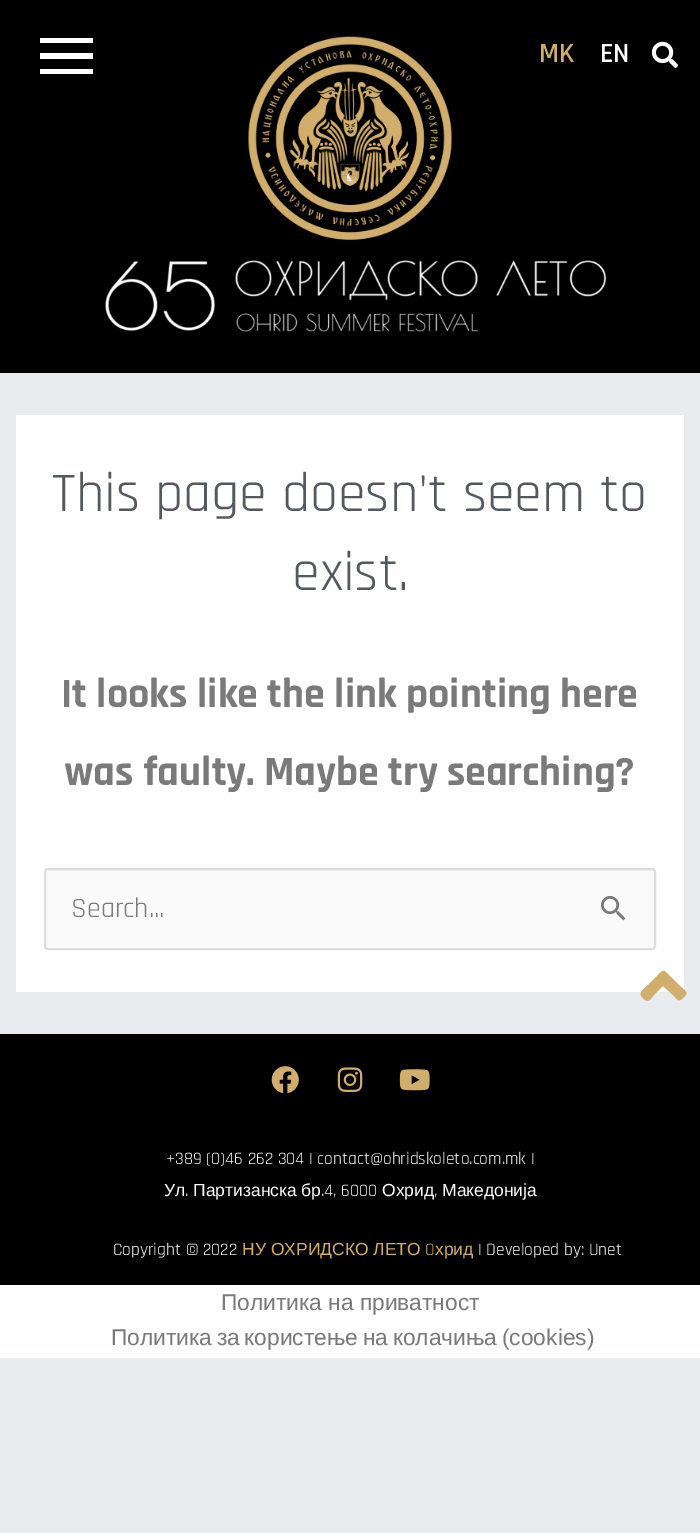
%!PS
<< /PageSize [700 1533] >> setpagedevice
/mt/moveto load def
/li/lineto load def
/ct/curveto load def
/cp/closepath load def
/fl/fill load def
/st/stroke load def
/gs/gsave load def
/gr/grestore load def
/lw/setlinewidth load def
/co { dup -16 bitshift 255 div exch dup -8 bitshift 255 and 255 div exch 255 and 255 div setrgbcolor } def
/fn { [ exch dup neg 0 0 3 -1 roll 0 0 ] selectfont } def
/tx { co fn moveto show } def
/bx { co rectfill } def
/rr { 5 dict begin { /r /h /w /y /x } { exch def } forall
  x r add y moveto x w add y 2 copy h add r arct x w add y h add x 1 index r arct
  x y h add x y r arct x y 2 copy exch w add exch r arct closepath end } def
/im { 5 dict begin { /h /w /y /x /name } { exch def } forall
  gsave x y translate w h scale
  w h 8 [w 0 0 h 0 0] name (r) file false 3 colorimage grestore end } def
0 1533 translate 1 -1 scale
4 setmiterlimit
0 0 700 1533 16#E9ECEF bx
0 0 700 373 16#000000 bx
(media/1.raw) 248 36 204 204 im
(media/2.raw) 105 260 502 72 im
16#FFFFFF co
40 38 mt 40 43 li 93 43 li 93 38 li cp 40 53 mt 40 59 li 93 59 li 93 53 li cp 40 69 mt 40 74 li 93 74 li 93 69 li cp fl
(media/3.raw) 651 41 28 27 im
16 415 668 577 16#FFFFFF bx
16#FAFAFA co
45 869 610 80 3 rr gs fl gr
16#DDDDDD co
2 lw
st
(media/4.raw) 601 896 25 25 im
0 1034 700 251 16#000000 bx
16#D2AE6D co
666 972 mt 679 985 li 685 991 690 992 683 998 ct 678 1003 677 999 673 995 ct 663 986 li 654 995 li 652 997 649 1003 645 1000 ct 637 993 641 992 648 985 ct 658 975 li 660 973 663 969 666 972 ct cp fl
(media/5.raw) 271 1066 28 28 im
(media/6.raw) 337 1067 26 25 im
(media/7.raw) 399 1069 31 22 im
0 1285 700 73 16#FFFFFF bx
(MK) 539 62 /Rajdhani-SemiBold 28 16#D2AE6D tx
(EN) 600 62 /Rajdhani-SemiBold 28 16#FFFFFF tx
(This page doesn't seem to) 52 511 /Rajdhani-Regular 56 16#54595F tx
(exist.) 292 590 /Rajdhani-Regular 56 16#54595F tx
(It looks like the link pointing here) 61 707 /Rajdhani-Bold 42 16#7A7A7A tx
(was faulty. Maybe try searching?) 64 785 /Rajdhani-Bold 42 16#7A7A7A tx
(Search...) 71 917 /Rajdhani-Regular 28 16#7A7A7A tx
(+389 \(0\)46 262 304 | contact@ohridskoleto.com.mk |) 166 1164 /Rajdhani-Regular 17.5 16#FFFFFF tx
(Ул) 164 1196 /LiberationSans-Regular 17.5 16#FFFFFF tx
(.) 185 1196 /Rajdhani-Regular 17.5 16#FFFFFF tx
(Партизанска бр) 193 1196 /LiberationSans-Regular 17.5 16#FFFFFF tx
(.4, 6000) 321 1196 /Rajdhani-Regular 17.5 16#FFFFFF tx
(Охрид) 382 1196 /LiberationSans-Regular 17.5 16#FFFFFF tx
(,) 434 1196 /Rajdhani-Regular 17.5 16#FFFFFF tx
(Македонија) 442 1196 /LiberationSans-Regular 17.5 16#FFFFFF tx
(Copyright © 2022) 113 1255 /Rajdhani-Regular 17.5 16#FFFFFF tx
(НУ ОХРИДСКО ЛЕТО) 242 1255 /LiberationSans-Regular 17.5 16#D2AE6D tx
(O) 425 1255 /Rajdhani-Regular 17.5 16#D2AE6D tx
(хрид) 435 1255 /LiberationSans-Regular 17.5 16#D2AE6D tx
(| Developed by: Unet) 478 1255 /Rajdhani-Regular 17.5 16#FFFFFF tx
(Политика на приватност) 221 1310 /LiberationSans-Regular 22.75 16#7A7A7A tx
111 1345 mt -1.5 0 32 (Политика за користење на колачиња \(cookies\)) widthshow
showpage
